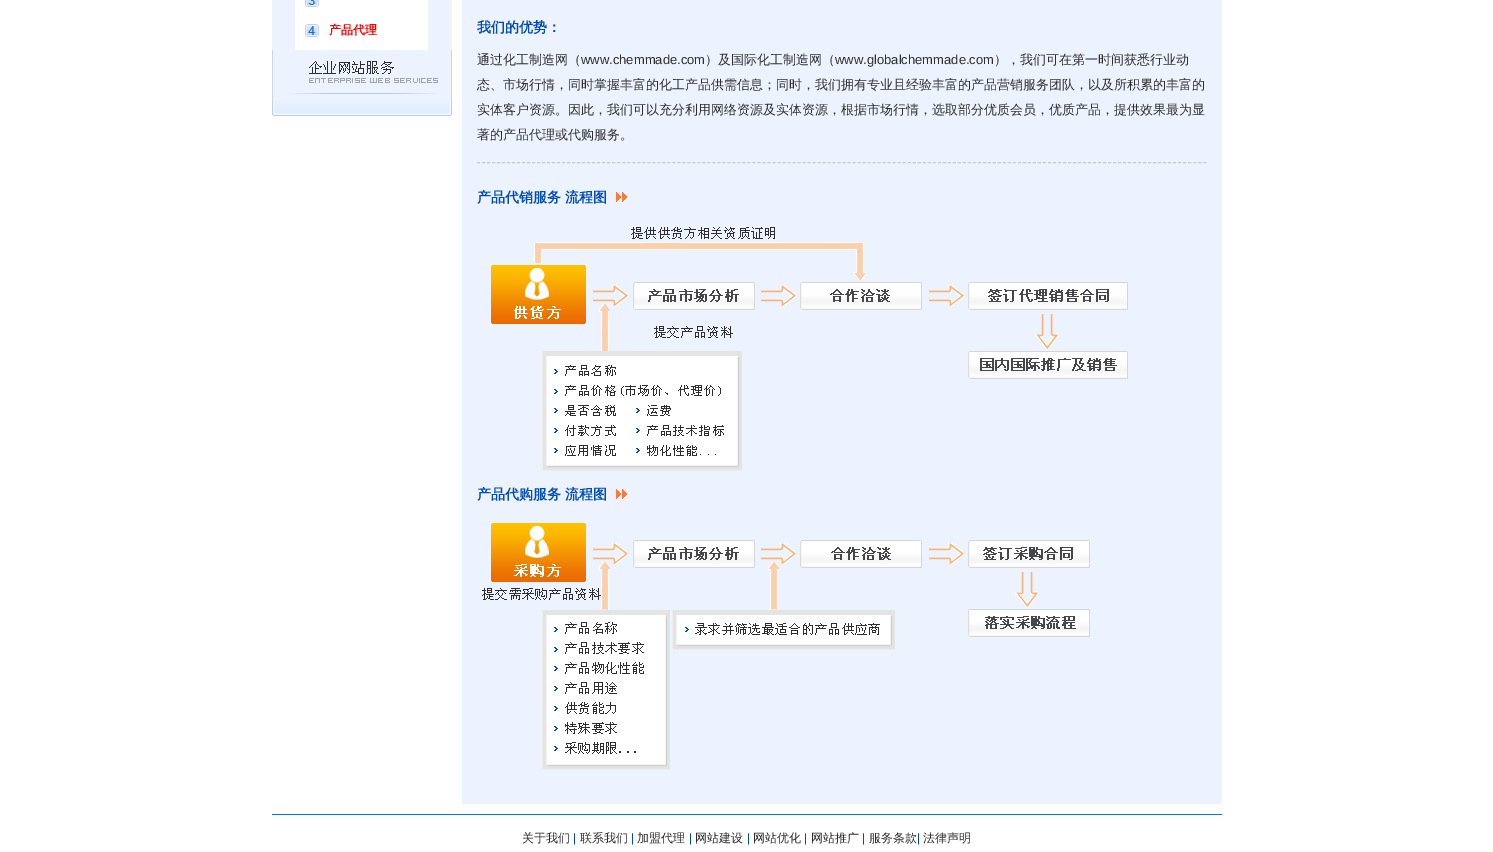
%!PS
<< /PageSize [1493 852] >> setpagedevice
/mt/moveto load def
/li/lineto load def
/st/stroke load def
/co { dup -16 bitshift 255 div exch dup -8 bitshift 255 and 255 div exch 255 and 255 div setrgbcolor } def
/fn { [ exch dup neg 0 0 3 -1 roll 0 0 ] selectfont } def
/tx { co fn moveto show } def
/bx { co rectfill } def
/im { 5 dict begin { /h /w /y /x /name } { exch def } forall
  gsave x y translate w h scale
  w h 8 [w 0 0 h 0 0] name (r) file false 3 colorimage grestore end } def
0 852 translate 1 -1 scale
4 setmiterlimit
0 0 1493 852 16#FFFFFF bx
272 0 180 50 16#ECF3FE bx
295 0 133 15 16#FFFFFF bx
(media/1.raw) 305 0 14 7 im
295 15 133 35 16#FFFFFF bx
(media/2.raw) 305 24 14 13 im
(media/3.raw) 272 50 180 44 im
(media/4.raw) 272 94 180 22 im
462 0 760 804 16#ECF3FE bx
16#C8C8C8 co
[3 2.01] 0 setdash
477 162.5 mt 1207 162.5 li st
(media/5.raw) 616 192 11 10 im
(media/6.raw) 491 227 637 244 im
(media/5.raw) 616 489 11 10 im
(media/7.raw) 482 523 608 247 im
272 814 950 1 16#0077E0 bx
(产品代理) 329 34 /WenQuanYiZenHei-Bold 12 16#FF0000 tx
(我们的优势：) 477 32 /WenQuanYiZenHei-Bold 14 16#024CB5 tx
(通过化工制造网（) 477 64 /WenQuanYiZenHei-Medium 13 16#2E2E2E tx
(www.chemmade.com) 581 64 /LiberationSans-Regular 13 16#2E2E2E tx
(）及国际化工制造网（) 705 64 /WenQuanYiZenHei-Medium 13 16#2E2E2E tx
(www.globalchemmade.com) 835 64 /LiberationSans-Regular 13 16#2E2E2E tx
(），我们可在第一时间获悉行业动) 994 64 /WenQuanYiZenHei-Medium 13 16#2E2E2E tx
(态、市场行情，同时掌握丰富的化工产品供需信息；同时，我们拥有专业且经验丰富的产品营销服务团队，以及所积累的丰富的) 477 89 /WenQuanYiZenHei-Medium 13 16#2E2E2E tx
(实体客户资源。因此，我们可以充分利用网络资源及实体资源，根据市场行情，选取部分优质会员，优质产品，提供效果最为显) 477 114 /WenQuanYiZenHei-Medium 13 16#2E2E2E tx
(著的产品代理或代购服务。) 477 139 /WenQuanYiZenHei-Medium 13 16#2E2E2E tx
(产品代销服务 流程图) 477 202 /WenQuanYiZenHei-Bold 14 16#024CB5 tx
(产品代购服务 流程图) 477 499 /WenQuanYiZenHei-Bold 14 16#024CB5 tx
(关于我们) 522 842 /WenQuanYiZenHei-Medium 12 16#2E2E2E tx
(|) 573 842 /LiberationSans-Regular 12 16#024CB5 tx
(联系我们) 580 842 /WenQuanYiZenHei-Medium 12 16#2E2E2E tx
(|) 631 842 /LiberationSans-Regular 12 16#024CB5 tx
(加盟代理) 637 842 /WenQuanYiZenHei-Medium 12 16#2E2E2E tx
(|) 689 842 /LiberationSans-Regular 12 16#024CB5 tx
(网站建设) 695 842 /WenQuanYiZenHei-Medium 12 16#2E2E2E tx
(|) 747 842 /LiberationSans-Regular 12 16#024CB5 tx
(网站优化) 753 842 /WenQuanYiZenHei-Medium 12 16#2E2E2E tx
(|) 804 842 /LiberationSans-Regular 12 16#024CB5 tx
(网站推广) 811 842 /WenQuanYiZenHei-Medium 12 16#2E2E2E tx
(|) 862 842 /LiberationSans-Regular 12 16#024CB5 tx
(服务条款) 869 842 /WenQuanYiZenHei-Medium 12 16#2E2E2E tx
(|) 917 842 /LiberationSans-Regular 12 16#024CB5 tx
(法律声明) 923 842 /WenQuanYiZenHei-Medium 12 16#2E2E2E tx
showpage
